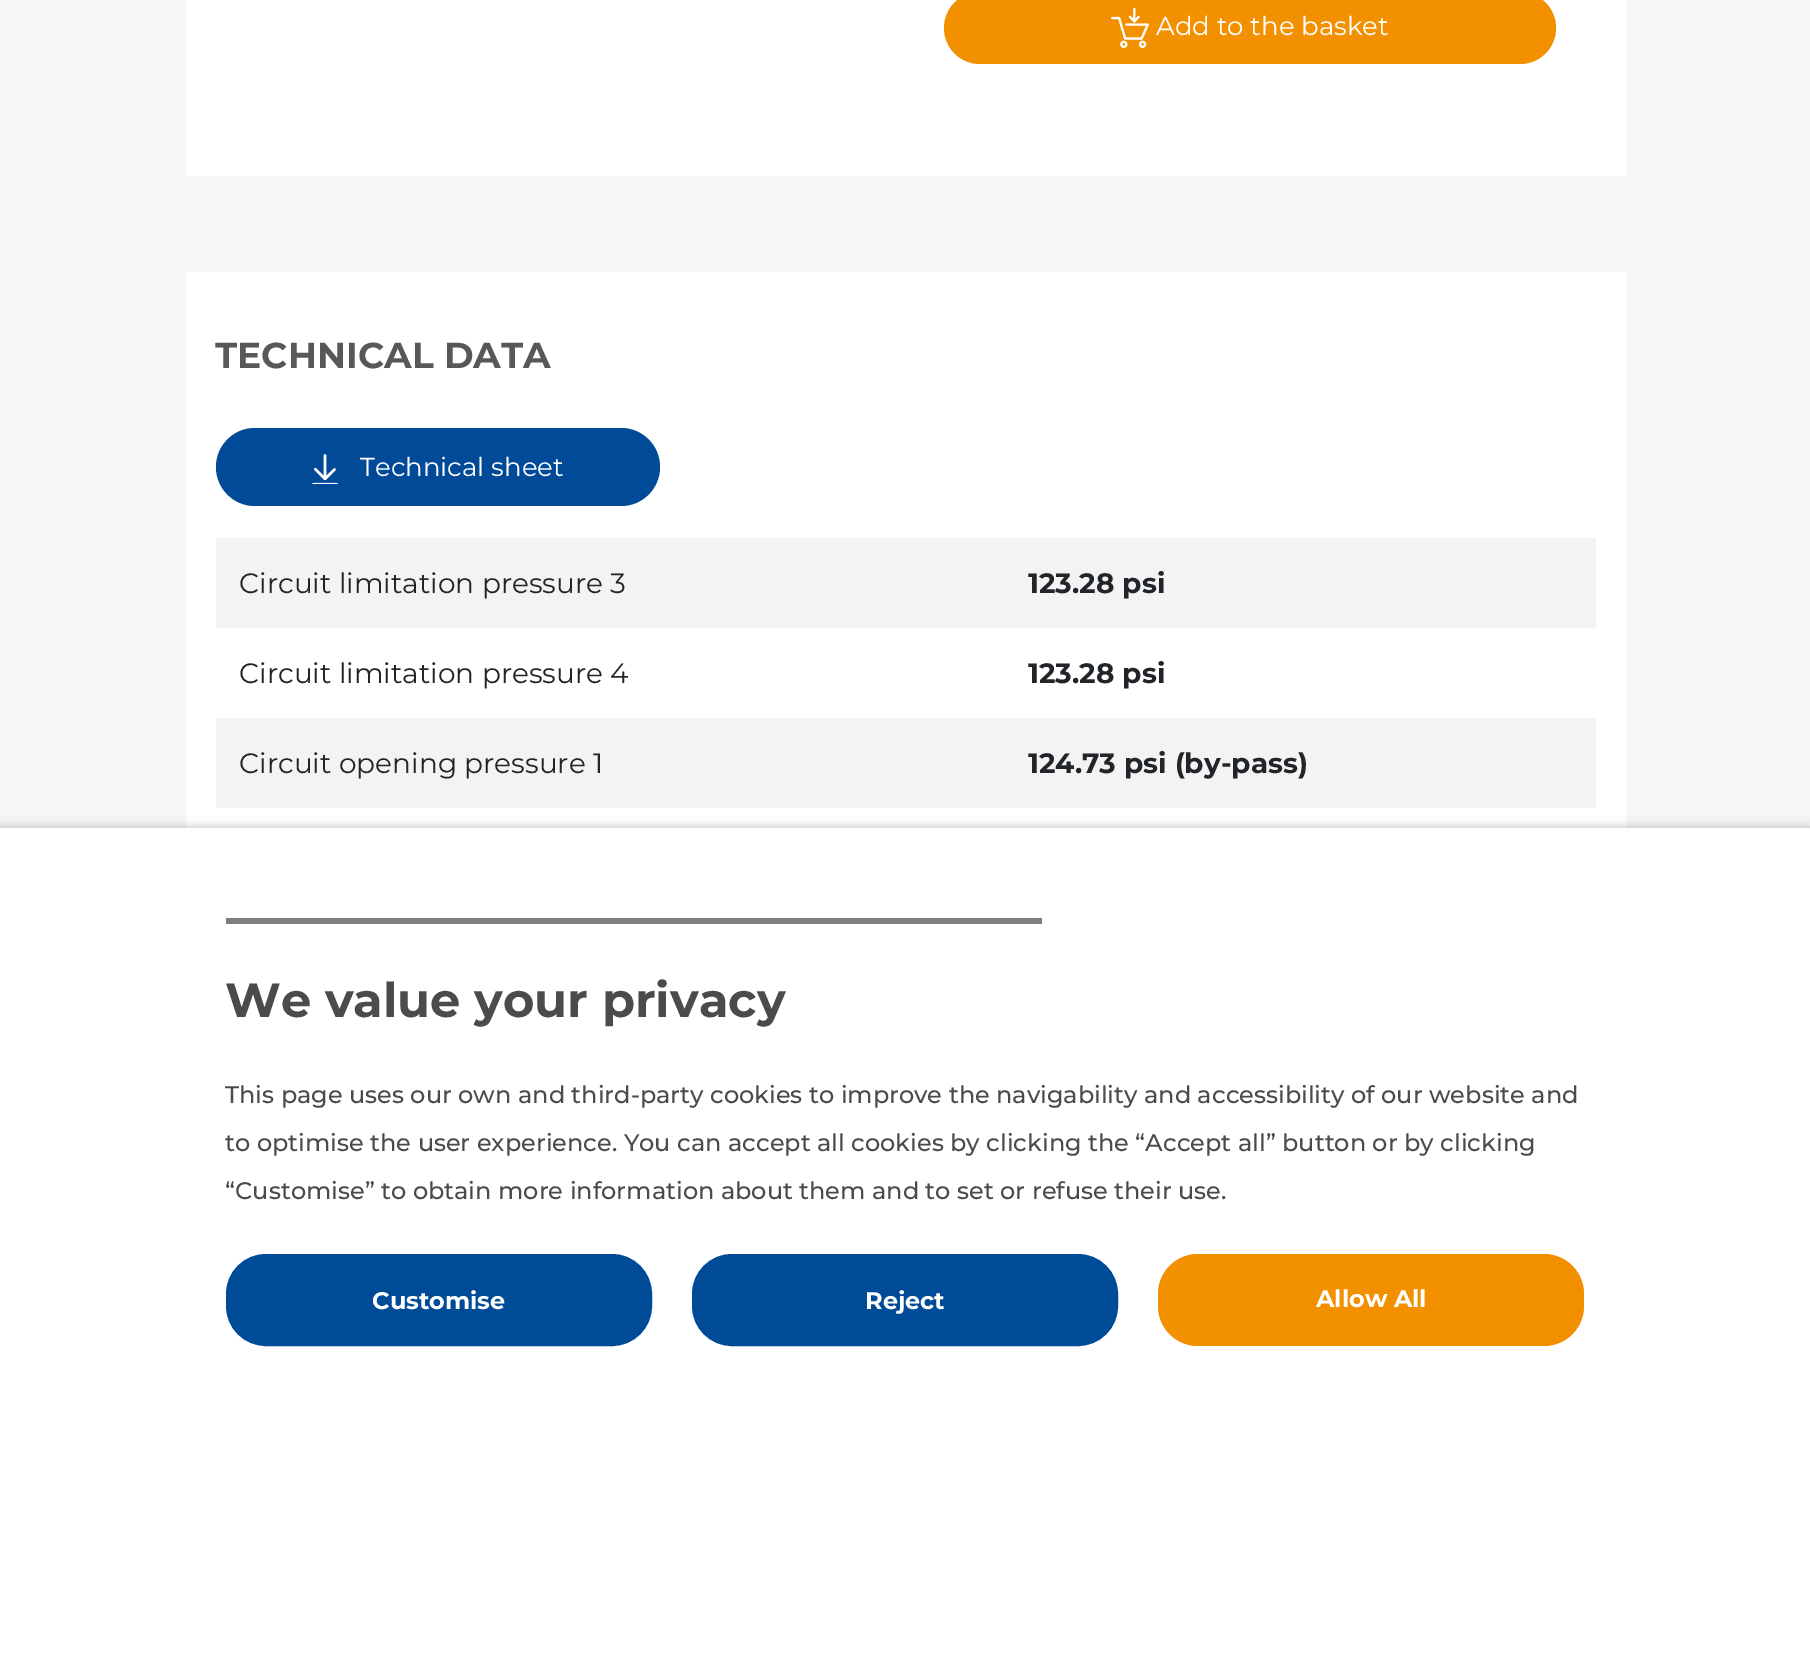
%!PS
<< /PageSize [1810 1654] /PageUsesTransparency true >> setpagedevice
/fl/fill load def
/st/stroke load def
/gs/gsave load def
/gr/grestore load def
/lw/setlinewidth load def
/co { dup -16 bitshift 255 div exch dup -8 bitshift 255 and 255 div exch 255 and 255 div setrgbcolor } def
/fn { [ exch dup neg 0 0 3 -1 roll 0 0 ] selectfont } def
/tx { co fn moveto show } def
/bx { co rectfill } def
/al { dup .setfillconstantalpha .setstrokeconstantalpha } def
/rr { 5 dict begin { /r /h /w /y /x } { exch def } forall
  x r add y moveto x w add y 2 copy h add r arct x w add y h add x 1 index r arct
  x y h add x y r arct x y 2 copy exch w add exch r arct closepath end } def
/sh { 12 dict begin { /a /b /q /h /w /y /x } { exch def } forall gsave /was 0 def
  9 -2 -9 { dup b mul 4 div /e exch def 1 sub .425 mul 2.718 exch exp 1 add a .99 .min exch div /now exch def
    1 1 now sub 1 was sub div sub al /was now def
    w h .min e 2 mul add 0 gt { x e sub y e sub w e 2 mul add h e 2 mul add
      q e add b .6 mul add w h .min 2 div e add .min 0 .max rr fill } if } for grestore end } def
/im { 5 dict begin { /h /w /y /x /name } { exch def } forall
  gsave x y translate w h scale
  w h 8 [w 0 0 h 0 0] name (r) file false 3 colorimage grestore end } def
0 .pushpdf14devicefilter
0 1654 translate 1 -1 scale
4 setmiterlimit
0 0 1810 1654 16#F6F6F6 bx
186 0 1440 176 16#FFFFFF bx
16#F39000 co
944 -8 612 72 36 rr fl
(media/1.raw) 1111 8 38 40 im
186 272 1440 556 16#FFFFFF bx
16#004A98 co
216 428 444 78 39 rr fl
(media/2.raw) 312 454 26 30 im
216 538 1380 90 16#F3F3F3 bx
216 718 1380 90 16#F3F3F3 bx
16#000000 co
0 830 1810 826 0 6 .4 sh
0 828 1810 826 16#FFFFFF bx
226 918 816 6 16#7F7F7F bx
16#004B97 co
227 1255 424 90 39 rr gs fl gr
2 lw
st
693 1255 424 90 39 rr gs fl gr
st
16#F39000 co
1158 1254 426 92 40 rr fl
(Add to the basket) 1156 35 /Montserrat-Regular 26 16#FFFFFF tx
(TECHNICAL DATA) 215 368 /Montserrat-Bold 36 16#585858 tx
(Technical sheet) 360 476 /Montserrat-Regular 26 16#FFFFFF tx
(Circuit limitation pressure 3) 239 593 /Montserrat-Regular 28 16#212529 tx
(123.28 psi) 1028 593 /Montserrat-Bold 28 16#212529 tx
(Circuit limitation pressure 4) 239 683 /Montserrat-Regular 28 16#212529 tx
(123.28 psi) 1028 683 /Montserrat-Bold 28 16#212529 tx
(Circuit opening pressure 1) 239 773 /Montserrat-Regular 28 16#212529 tx
(124.73 psi \(by-pass\)) 1028 773 /Montserrat-Bold 28 16#212529 tx
(We value your privacy) 225 1017 /Montserrat-Bold 48 16#4B4B4B tx
(This page uses our own and third-party cookies to improve the navigability and accessibility of our website and) 225 1103 /Montserrat-Medium 24 16#4B4B4B tx
(to optimise the user experience. You can accept all cookies by clicking the “Accept all” button or by clicking) 225 1151 /Montserrat-Medium 24 16#4B4B4B tx
(“Customise” to obtain more information about them and to set or refuse their use.) 225 1199 /Montserrat-Medium 24 16#4B4B4B tx
(Customise) 372 1309 /Montserrat-Bold 24 16#FFFFFF tx
(Reject) 865 1309 /Montserrat-Bold 24 16#FFFFFF tx
(Allow All) 1316 1307 /Montserrat-Bold 24 16#FFFFFF tx
.poppdf14devicefilter showpage
